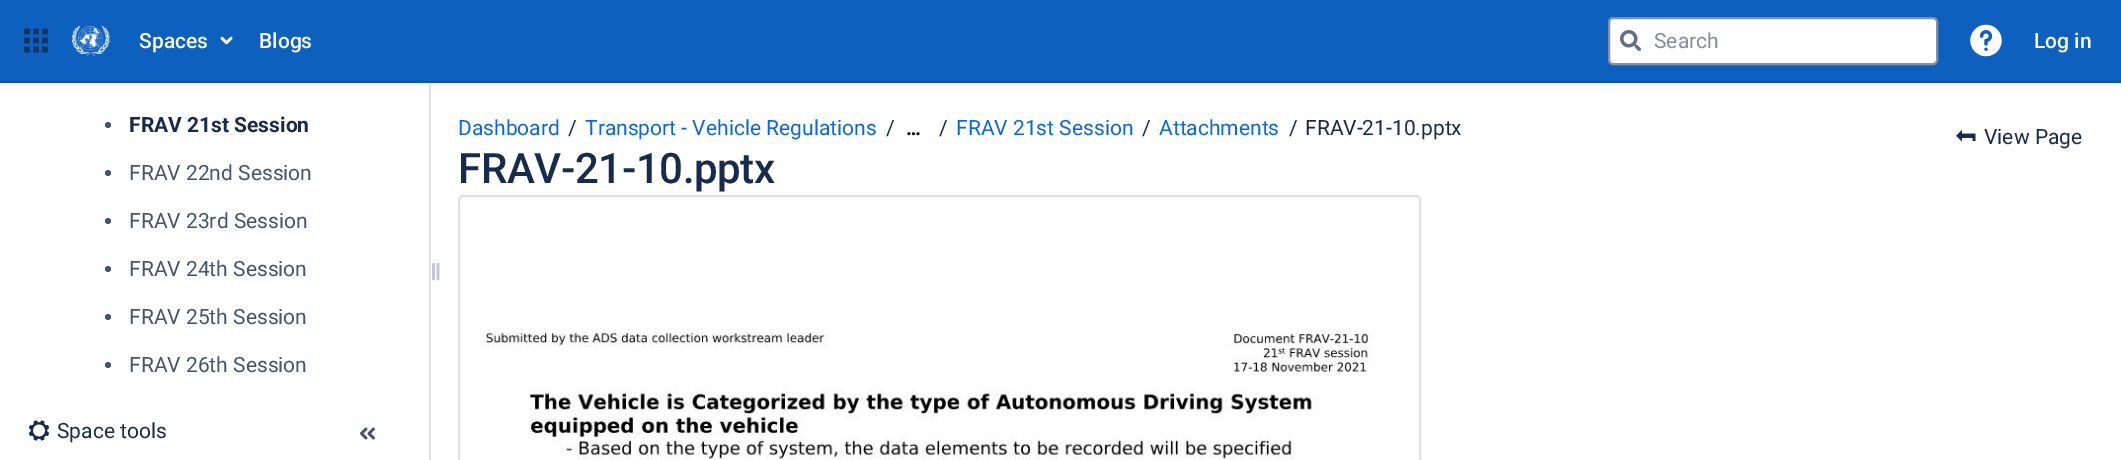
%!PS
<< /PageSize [2121 460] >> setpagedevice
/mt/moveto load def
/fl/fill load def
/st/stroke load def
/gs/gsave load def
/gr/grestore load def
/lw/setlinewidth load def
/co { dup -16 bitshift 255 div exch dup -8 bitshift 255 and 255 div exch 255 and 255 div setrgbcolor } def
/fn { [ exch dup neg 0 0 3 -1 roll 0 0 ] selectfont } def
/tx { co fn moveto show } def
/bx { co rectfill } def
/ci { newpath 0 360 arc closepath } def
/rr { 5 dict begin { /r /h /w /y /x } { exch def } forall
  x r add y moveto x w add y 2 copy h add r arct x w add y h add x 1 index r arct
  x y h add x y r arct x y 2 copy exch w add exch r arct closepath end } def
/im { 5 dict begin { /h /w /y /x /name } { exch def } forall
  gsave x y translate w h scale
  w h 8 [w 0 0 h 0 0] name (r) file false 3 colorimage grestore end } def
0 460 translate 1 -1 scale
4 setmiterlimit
0 0 2121 460 16#FFFFFF bx
0 0 2121 81 16#0E60BE bx
0 81 2121 2 16#0D57AD bx
(media/1.raw) 24 28 24 25 im
(media/2.raw) 72 25 38 31 im
(media/3.raw) 220 36 13 9 im
16#FFFFFF co
1609 18 328 46 4 rr gs fl gr
16#8590A2 co
2 lw
st
(media/4.raw) 1620 30 21 21 im
(media/5.raw) 1970 24 32 33 im
16#44546F co
108 125 3 ci fl
108 173 3 ci fl
108 221 3 ci fl
108 269 3 ci fl
108 317 3 ci fl
108 365 3 ci fl
(media/6.raw) 432 263 8 18 im
429 83 2 377 16#DDE0E5 bx
(media/7.raw) 28 420 22 21 im
(media/8.raw) 360 427 15 13 im
(media/9.raw) 1956 129 20 13 im
459 196 961 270 4 rr st
(media/10.raw) 481 332 893 128 im
(Spaces) 139 48 /Roboto-Medium 21 16#FFFFFF tx
(Blogs) 259 48 /Roboto-Medium 21 16#FFFFFF tx
(Search) 1654 48 /Roboto-Regular 21 16#818C9E tx
(Log in) 2034 48 /Roboto-Medium 21 16#FFFFFF tx
(FRAV 21st Session) 129 132 /Roboto-Bold 21 16#172B4D tx
(FRAV 22nd Session) 129 180 /Roboto-Regular 21 16#44546F tx
(FRAV 23rd Session) 129 228 /Roboto-Regular 21 16#44546F tx
(FRAV 24th Session) 129 276 /Roboto-Regular 21 16#44546F tx
(FRAV 25th Session) 129 324 /Roboto-Regular 21 16#44546F tx
(FRAV 26th Session) 129 372 /Roboto-Regular 21 16#44546F tx
(Space tools) 57 438 /Roboto-Regular 21 16#172B4D tx
(Dashboard) 458 135 /Roboto-Regular 21 16#0C66E4 tx
(/) 568 135 /Roboto-Regular 21 16#172B4D tx
(Transport - Vehicle Regulations) 585 135 /Roboto-Regular 21 16#0C66E4 tx
(/) 886 135 /Roboto-Regular 21 16#172B4D tx
(…) 906 135 /Roboto-Bold 20 16#000000 tx
(/) 939 135 /Roboto-Regular 21 16#172B4D tx
(FRAV 21st Session) 956 135 /Roboto-Regular 21 16#0C66E4 tx
(/) 1142 135 /Roboto-Regular 21 16#172B4D tx
(Attachments) 1159 135 /Roboto-Regular 21 16#0C66E4 tx
(/) 1289 135 /Roboto-Regular 21 16#172B4D tx
(FRAV-21-10.pptx) 1305 135 /Roboto-Regular 21 16#172B4D tx
(View Page) 1984 144 /Roboto-Regular 21 16#172B4D tx
/Roboto-Medium 42 fn
458 183 mt -.4 0 (FRAV-21-10.pptx) ashow
showpage
